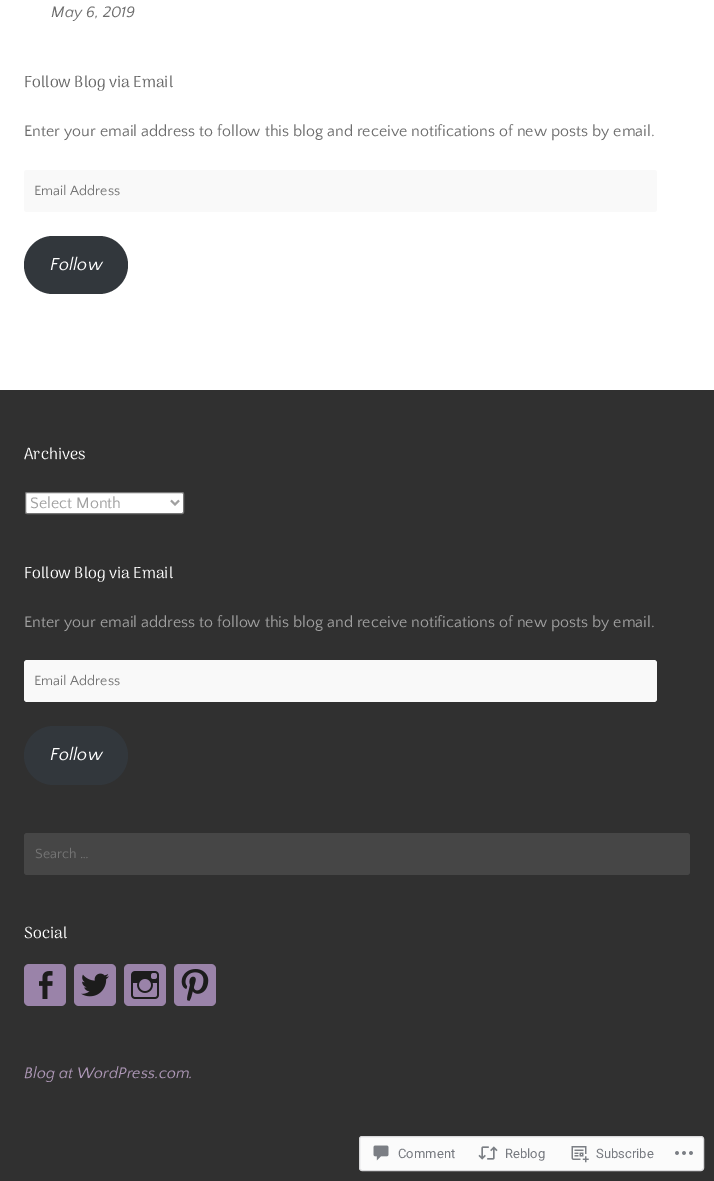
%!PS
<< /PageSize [714 1181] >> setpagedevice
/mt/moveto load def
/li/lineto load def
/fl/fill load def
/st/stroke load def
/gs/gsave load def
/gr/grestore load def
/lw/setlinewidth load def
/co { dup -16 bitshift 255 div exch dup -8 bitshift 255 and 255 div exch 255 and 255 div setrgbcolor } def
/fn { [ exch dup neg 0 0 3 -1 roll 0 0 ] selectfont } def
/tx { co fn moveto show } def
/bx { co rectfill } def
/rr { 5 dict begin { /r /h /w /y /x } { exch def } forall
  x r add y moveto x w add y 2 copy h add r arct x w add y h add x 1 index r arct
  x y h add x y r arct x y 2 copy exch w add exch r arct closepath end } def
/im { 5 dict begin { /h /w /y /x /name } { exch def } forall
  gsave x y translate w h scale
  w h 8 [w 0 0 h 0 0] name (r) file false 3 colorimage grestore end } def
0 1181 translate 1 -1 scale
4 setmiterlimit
0 0 714 1181 16#FFFFFF bx
16#F9F9F9 co
24 170 633 42 3 rr fl
16#32373C co
24 236 104 58 29 rr fl
0 390 714 791 16#303030 bx
16#FFFFFF co
25.5 492.5 158 21 1.5 rr gs fl gr
16#767676 co
st
16#A0A0A0 co
2 lw
171 500.5 mt 175 504.5 li 179 500.5 li st
16#F9F9F9 co
24 660 633 42 3 rr fl
16#32373C co
24 726 104 59 29.5 rr fl
16#464646 co
24 833 666 42 3 rr fl
16#9A83A9 co
24 964 42 42 5 rr fl
(media/1.raw) 39 971 14 28 im
74 964 42 42 5 rr fl
(media/2.raw) 81 973 28 24 im
124 964 42 42 5 rr fl
(media/3.raw) 131 971 28 28 im
174 964 42 42 5 rr fl
(media/4.raw) 181 969 28 32 im
16#FBFBFB co
359.5 1136.5 344 34 2.5 rr gs fl gr
16#D9D9DB co
1 lw
st
(media/5.raw) 373 1145 16 16 im
(media/6.raw) 478 1146 20 14 im
(media/7.raw) 571 1146 18 17 im
(media/8.raw) 675 1151 18 4 im
(May 6, 2019) 51 17 /QuattrocentoSans-Italic 16 16#6D6D6D tx
(Follow Blog via Email) 24 87 /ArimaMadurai-Regular 16 16#666666 tx
(Enter your email address to follow this blog and receive notifications of new posts by email.) 24 136 /QuattrocentoSans-Regular 16 16#6D6D6D tx
(Email Address) 34 195 /QuattrocentoSans-Regular 14 16#757575 tx
(Follow) 50 270 /QuattrocentoSans-Italic 18 16#FFFFFF tx
(Archives) 24 459 /ArimaMadurai-Regular 16 16#FFFFFF tx
(Select Month) 30 508 /QuattrocentoSans-Regular 16 16#A0A0A0 tx
(Follow Blog via Email) 24 578 /ArimaMadurai-Regular 16 16#FFFFFF tx
(Enter your email address to follow this blog and receive notifications of new posts by email.) 24 627 /QuattrocentoSans-Regular 16 16#A0A0A0 tx
(Email Address) 34 685 /QuattrocentoSans-Regular 14 16#757575 tx
(Follow) 50 760 /QuattrocentoSans-Italic 18 16#FFFFFF tx
(Search …) 35 858 /QuattrocentoSans-Regular 14 16#757575 tx
(Social) 24 938 /ArimaMadurai-Regular 16 16#FFFFFF tx
(Blog at WordPress.com.) 24 1078 /QuattrocentoSans-Italic 16 16#AE98B7 tx
(Comment) 398 1158 /Roboto-Regular 13 16#777A80 tx
(Reblog) 505 1158 /Roboto-Regular 13 16#777A80 tx
(Subscribe) 596 1158 /Roboto-Regular 13 16#777A80 tx
showpage
